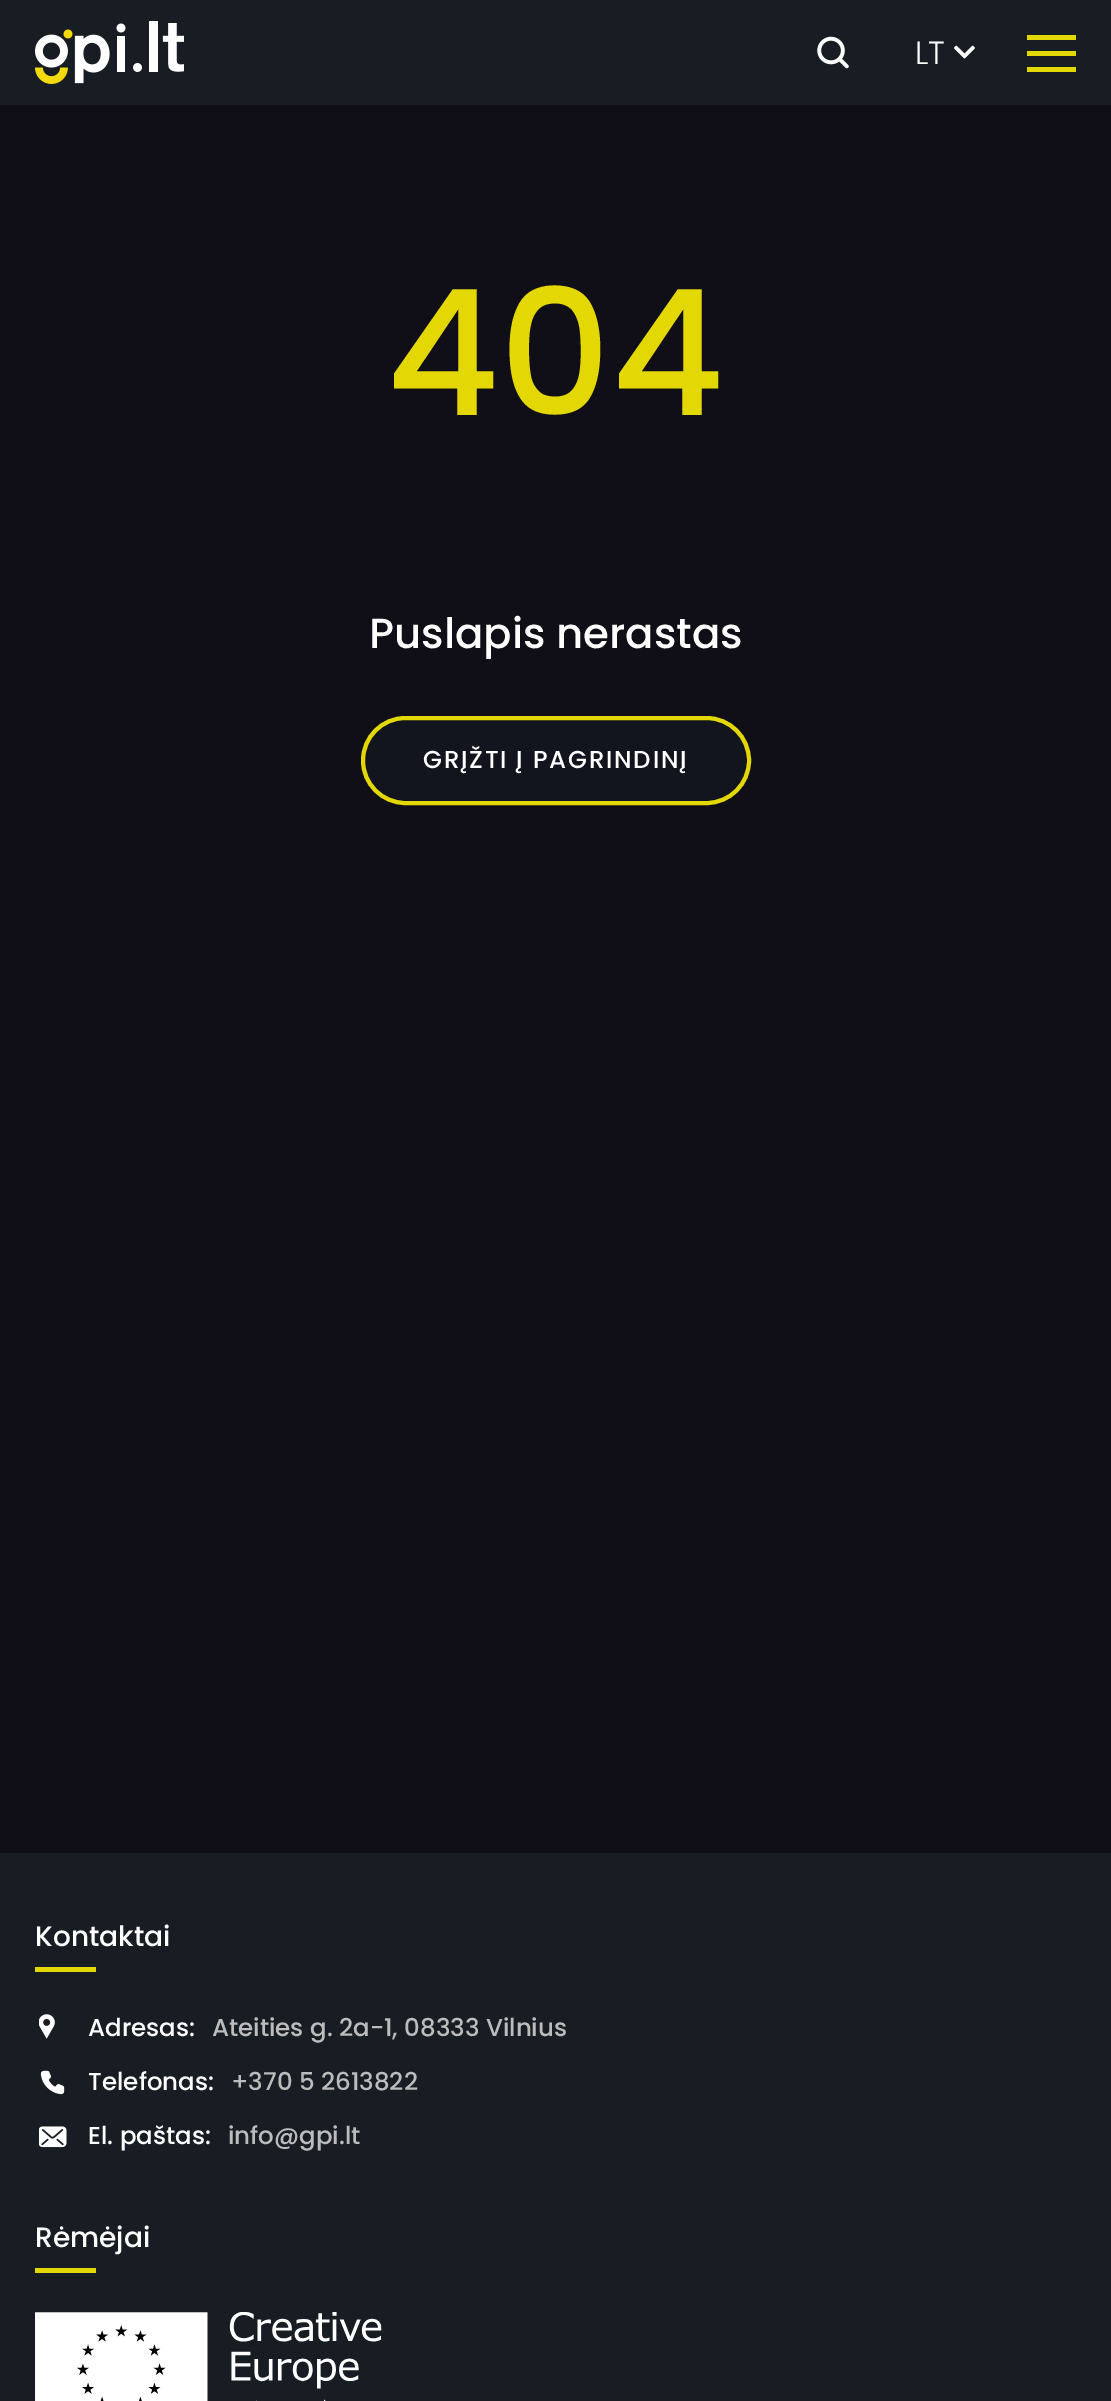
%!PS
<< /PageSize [1111 2401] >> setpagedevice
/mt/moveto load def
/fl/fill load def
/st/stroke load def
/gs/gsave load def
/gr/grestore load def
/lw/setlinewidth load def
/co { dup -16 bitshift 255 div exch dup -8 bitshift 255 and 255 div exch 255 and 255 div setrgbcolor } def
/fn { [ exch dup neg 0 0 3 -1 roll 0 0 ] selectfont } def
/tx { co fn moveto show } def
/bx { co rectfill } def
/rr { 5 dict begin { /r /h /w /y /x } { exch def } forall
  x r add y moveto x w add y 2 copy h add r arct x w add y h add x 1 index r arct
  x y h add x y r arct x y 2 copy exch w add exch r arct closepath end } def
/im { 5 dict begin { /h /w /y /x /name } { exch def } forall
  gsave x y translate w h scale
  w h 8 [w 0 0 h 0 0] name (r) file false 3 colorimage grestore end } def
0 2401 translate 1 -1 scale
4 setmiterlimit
0 0 1111 2401 16#100F17 bx
0 0 1111 105 16#171D22 bx
(media/1.raw) 35 21 149 63 im
(media/2.raw) 817 36 32 33 im
(media/3.raw) 954 45 21 14 im
1027 35 49 5 16#E4D804 bx
1027 51 49 5 16#E4D804 bx
1027 67 49 5 16#E4D804 bx
16#12151E co
363 718 386 85 42.5 rr gs fl gr
16#E4D804 co
4 lw
st
0 1853 1111 548 16#171D22 bx
35 1967 61 5 16#E4D804 bx
(media/4.raw) 39 2014 16 25 im
(media/5.raw) 40 2070 25 25 im
(media/6.raw) 39 2126 28 22 im
35 2268 61 5 16#E4D804 bx
(media/7.raw) 35 2312 347 89 im
(LT) 915 64 /Poppins-Light 32 16#FFFFFF tx
(404) 386 415 /Poppins-Medium 175 16#E4D804 tx
(Puslapis nerastas) 369 648 /Poppins-Medium 42 16#FFFFFF tx
/Poppins-Medium 24.5 fn
423 768 mt 1.75 0 (GRĮŽTI Į PAGRINDINĮ) ashow
(Kontaktai) 35 1946 /Poppins-Medium 28 16#FFFFFF tx
(Adresas:) 88 2036 /Poppins-Medium 24.5 16#FFFFFF tx
(Ateities g. 2a-1, 08333 Vilnius) 212 2036 /Poppins-Medium 24.5 16#BCBCBC tx
(Telefonas:) 88 2090 /Poppins-Medium 24.5 16#FFFFFF tx
(+370 5 2613822) 231 2090 /Poppins-Medium 24.5 16#BCBCBC tx
(El. paštas:) 88 2144 /Poppins-Medium 24.5 16#FFFFFF tx
(info@gpi.lt) 228 2144 /Poppins-Medium 24.5 16#BCBCBC tx
(Rėmėjai) 35 2247 /Poppins-Medium 28 16#FFFFFF tx
showpage
